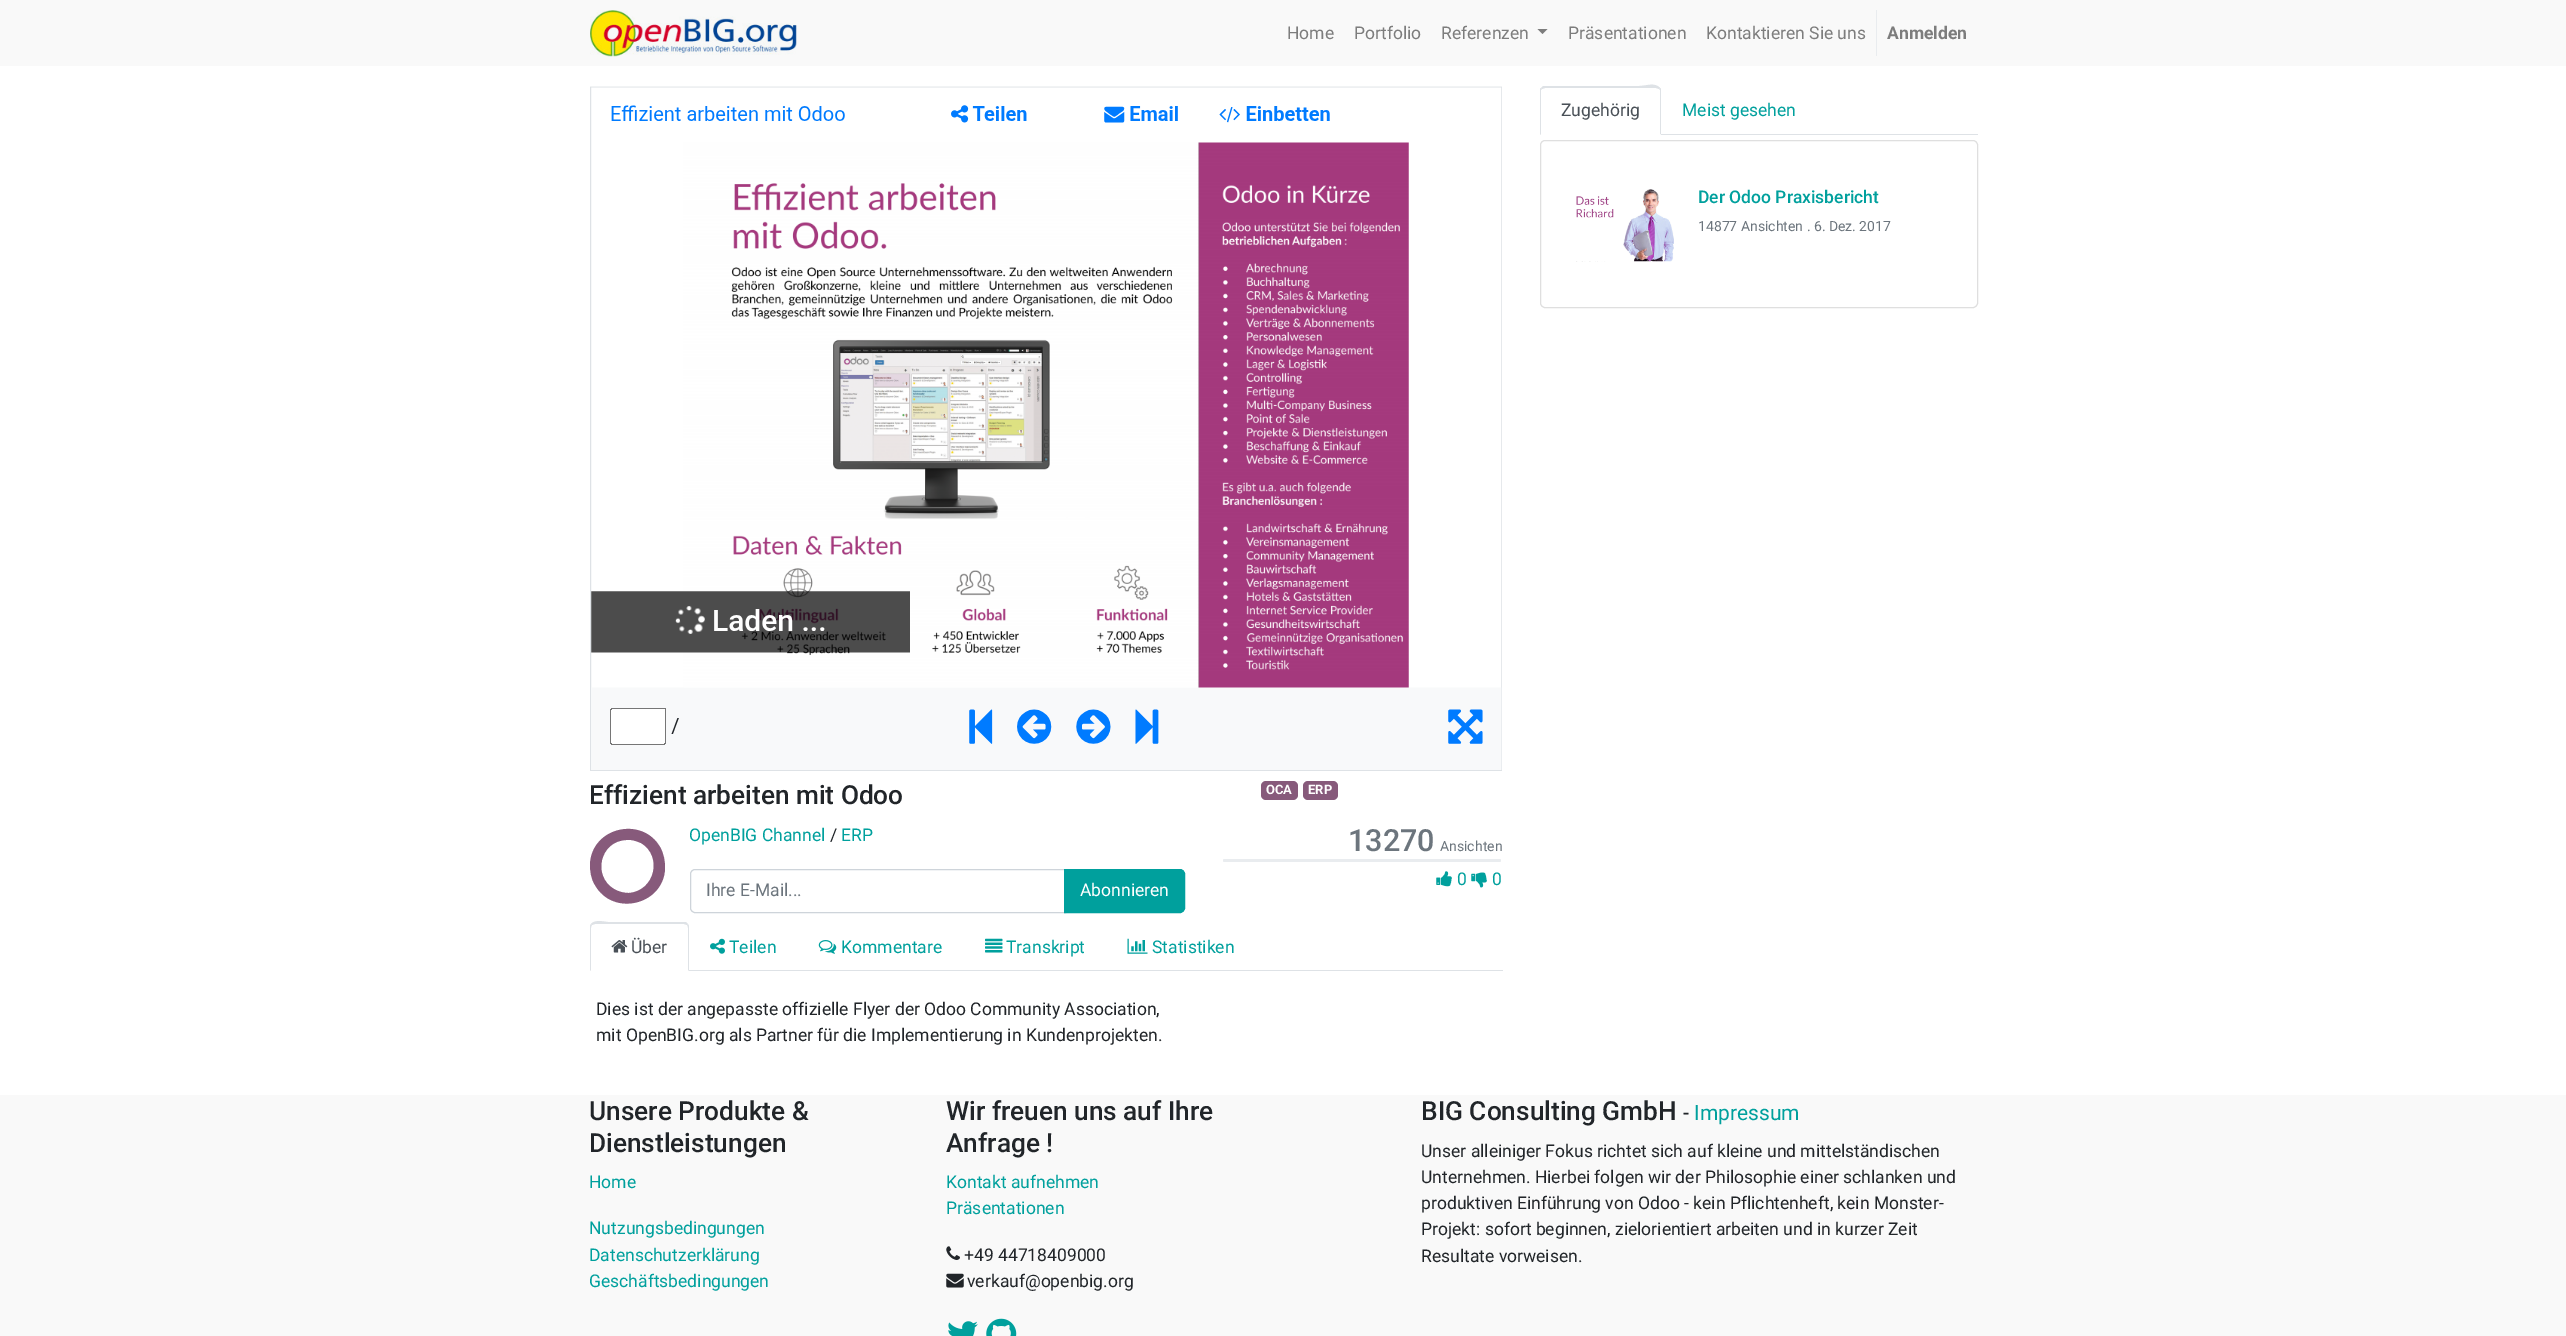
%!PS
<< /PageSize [2566 1336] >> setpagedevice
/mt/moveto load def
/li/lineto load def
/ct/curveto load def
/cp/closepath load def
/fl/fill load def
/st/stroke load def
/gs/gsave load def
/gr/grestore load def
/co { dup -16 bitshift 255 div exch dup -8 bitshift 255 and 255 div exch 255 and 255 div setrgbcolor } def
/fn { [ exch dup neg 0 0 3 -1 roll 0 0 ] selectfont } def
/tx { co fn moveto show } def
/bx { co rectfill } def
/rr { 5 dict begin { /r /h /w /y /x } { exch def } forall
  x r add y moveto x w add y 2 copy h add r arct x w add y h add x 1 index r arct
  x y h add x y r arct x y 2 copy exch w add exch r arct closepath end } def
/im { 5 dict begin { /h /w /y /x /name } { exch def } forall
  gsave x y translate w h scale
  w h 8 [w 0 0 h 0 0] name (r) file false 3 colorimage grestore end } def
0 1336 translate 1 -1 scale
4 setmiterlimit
0 0 2566 1336 16#FFFFFF bx
0 0 2566 66 16#F9F9F9 bx
(media/1.raw) 590 10 207 47 im
16#7D7D7D co
1537.5 29 mt 1547.5 29 li 1542.5 34 li cp fl
1876 10 1 46 16#E9ECEF bx
1661 134 317 1 16#DEE2E6 bx
1545 88 mt 1542 89 li 1541 88 li 1543 86 li 1639 86 li 1646 86 1655 82 1660 88 ct 1659 89 li 1656 88 li cp fl
1660 88 mt 1661 88 1661 90 1661 91 ct 1661 135 li 1660 134 li 1660 90 li 1659 89 li cp fl
16#FFFFFF co
1661 135 mt 1660 134 li 1541 134 li 1540 135 li cp fl
16#DEE2E6 co
1540 135 mt 1541 134 li 1541 90 li 1542 89 li 1541 88 li 1540 88 1540 90 1540 91 ct cp fl
16#DFDFDF co
1540.5 140.5 437 167 4.5 rr st
(media/2.raw) 1576 189 98 73 im
(media/3.raw) 590 86 912 685 im
16#875A7B co
1261 781 37 19 5 rr fl
1303 781 35 19 5 rr fl
641 843 mt 636 841 631 839 626 840 ct 600 841 592 876 614 889 ct 619 892 624 893 629 893 ct 655 891 663 856 641 843 ct cp 660 847 mt 664 854 665 861 665 869 ct 663 905 613 917 595 885 ct 591 879 590 871 590 864 ct 592 827 642 816 660 847 ct cp fl
16#CED4DA co
695 869.5 mt 1065.5 869.5 li 1065.5 912.5 li 695 912.5 li 692.5 912.5 690.5 910.5 690.5 908 ct 690.5 874 li 690.5 871.5 692.5 869.5 695 869.5 ct cp st
16#00A09D co
1064.5 869.5 mt 1180 869.5 li 1182.5 869.5 1184.5 871.5 1184.5 874 ct 1184.5 908 li 1184.5 910.5 1182.5 912.5 1180 912.5 ct 1064.5 912.5 li cp gs fl gr
st
16#E9ECEF co
1223 859 278 3 1.5 rr fl
(media/4.raw) 1436 871 16 16 im
(media/5.raw) 1471 872 16 16 im
689 970 814 1 16#DEE2E6 bx
595 924 mt 592 925 li 591 924 li 595 919 605 922 608 922 ct 686 922 li 688 924 li 687 925 li 684 924 li cp fl
689 971 mt 688 970 li 688 928 li 688 926 687 925 687 925 ct 688 924 li 689 926 li cp fl
590 928 mt 590 971 li 591 970 li 591 928 li 591 926 592 925 592 925 ct 591 924 li 590 925 590 926 590 928 ct cp fl
(media/6.raw) 611 940 17 13 im
(media/7.raw) 710 938 15 16 im
(media/8.raw) 818 940 19 14 im
(media/9.raw) 985 938 18 15 im
(media/10.raw) 1127 938 21 16 im
0 1095 2566 241 16#F9F9F9 bx
(media/11.raw) 946 1246 14 14 im
(media/12.raw) 946 1273 18 15 im
(media/13.raw) 948 1321 30 15 im
(media/14.raw) 986 1318 31 18 im
(Home) 1287 39 /Roboto-Regular 17.5 16#7D7D7D tx
(Portfolio) 1354 39 /Roboto-Regular 17.5 16#7D7D7D tx
(Referenzen) 1441 39 /Roboto-Regular 17.5 16#7D7D7D tx
(Präsentationen) 1568 39 /Roboto-Regular 17.5 16#7D7D7D tx
(Kontaktieren Sie uns) 1706 39 /Roboto-Regular 17.5 16#7D7D7D tx
(Anmelden) 1887 39 /Roboto-Bold 17.5 16#7D7D7D tx
(Zugehörig) 1561 116 /Roboto-Regular 17.5 16#495057 tx
(Meist gesehen) 1682 116 /Roboto-Regular 17.5 16#00A09D tx
(Der Odoo Praxisbericht) 1698 203 /Roboto-Medium 17.5 16#00A09D tx
(14877 Ansichten . 6. Dez. 2017) 1698 231 /Roboto-Regular 14 16#6C757D tx
(Effizient arbeiten mit Odoo) 589 804 /Roboto-Medium 26.25 16#212529 tx
(OCA) 1266 794 /Roboto-Bold 13 16#FFFFFF tx
(ERP) 1308 794 /Roboto-Bold 13 16#FFFFFF tx
(OpenBIG Channel) 689 841 /Roboto-Regular 17.5 16#00A09D tx
(/) 830 841 /Roboto-Regular 17.5 16#212529 tx
(ERP) 841 841 /Roboto-Regular 17.5 16#00A09D tx
(Ihre E-Mail...) 706 896 /Roboto-Regular 17.5 16#6C757D tx
(Abonnieren) 1080 896 /Roboto-Regular 17.5 16#FFFFFF tx
(13270) 1348 851 /Roboto-Medium 30.5 16#6C757D tx
(Ansichten) 1440 851 /Roboto-Regular 14 16#6C757D tx
(0) 1457 885 /Roboto-Regular 17.5 16#00A09D tx
(0) 1492 885 /Roboto-Regular 17.5 16#00A09D tx
(Über) 631 953 /Roboto-Regular 17.5 16#495057 tx
(Teilen) 729 953 /Roboto-Regular 17.5 16#00A09D tx
(Kommentare) 841 953 /Roboto-Regular 17.5 16#00A09D tx
(Transkript) 1006 953 /Roboto-Regular 17.5 16#00A09D tx
(Statistiken) 1152 953 /Roboto-Regular 17.5 16#00A09D tx
(Dies ist der angepasste offizielle Flyer der Odoo Community Association,) 596 1015 /Roboto-Regular 17.5 16#212529 tx
(mit OpenBIG.org als Partner für die Implementierung in Kundenprojekten.) 596 1041 /Roboto-Regular 17.5 16#212529 tx
(Unsere Produkte &) 589 1120 /Roboto-Medium 26.25 16#212529 tx
(Dienstleistungen) 589 1152 /Roboto-Medium 26.25 16#212529 tx
(Home) 589 1188 /Roboto-Regular 17.5 16#00A09D tx
(Nutzungsbedingungen) 589 1234 /Roboto-Regular 17.5 16#00A09D tx
(Datenschutzerklärung) 589 1261 /Roboto-Regular 17.5 16#00A09D tx
(Geschäftsbedingungen) 589 1287 /Roboto-Regular 17.5 16#00A09D tx
(Wir freuen uns auf Ihre) 946 1120 /Roboto-Medium 26.25 16#212529 tx
(Anfrage !) 946 1152 /Roboto-Medium 26.25 16#212529 tx
(Kontakt aufnehmen) 946 1188 /Roboto-Regular 17.5 16#00A09D tx
(Präsentationen) 946 1214 /Roboto-Regular 17.5 16#00A09D tx
(+49 44718409000) 964 1261 /Roboto-Regular 17.5 16#212529 tx
(verkauf@openbig.org) 967 1287 /Roboto-Regular 17.5 16#212529 tx
(BIG Consulting GmbH) 1421 1120 /Roboto-Medium 26.25 16#212529 tx
(-) 1683 1120 /Roboto-Regular 21 16#212529 tx
(Impressum) 1694 1120 /Roboto-Regular 21 16#00A09D tx
(Unser alleiniger Fokus richtet sich auf kleine und mittelständischen) 1421 1157 /Roboto-Regular 17.5 16#212529 tx
(Unternehmen. Hierbei folgen wir der Philosophie einer schlanken und) 1421 1183 /Roboto-Regular 17.5 16#212529 tx
(produktiven Einführung von Odoo - kein Pflichtenheft, kein Monster-) 1421 1209 /Roboto-Regular 17.5 16#212529 tx
(Projekt: sofort beginnen, zielorientiert arbeiten und in kurzer Zeit) 1421 1235 /Roboto-Regular 17.5 16#212529 tx
(Resultate vorweisen.) 1421 1262 /Roboto-Regular 17.5 16#212529 tx
showpage
